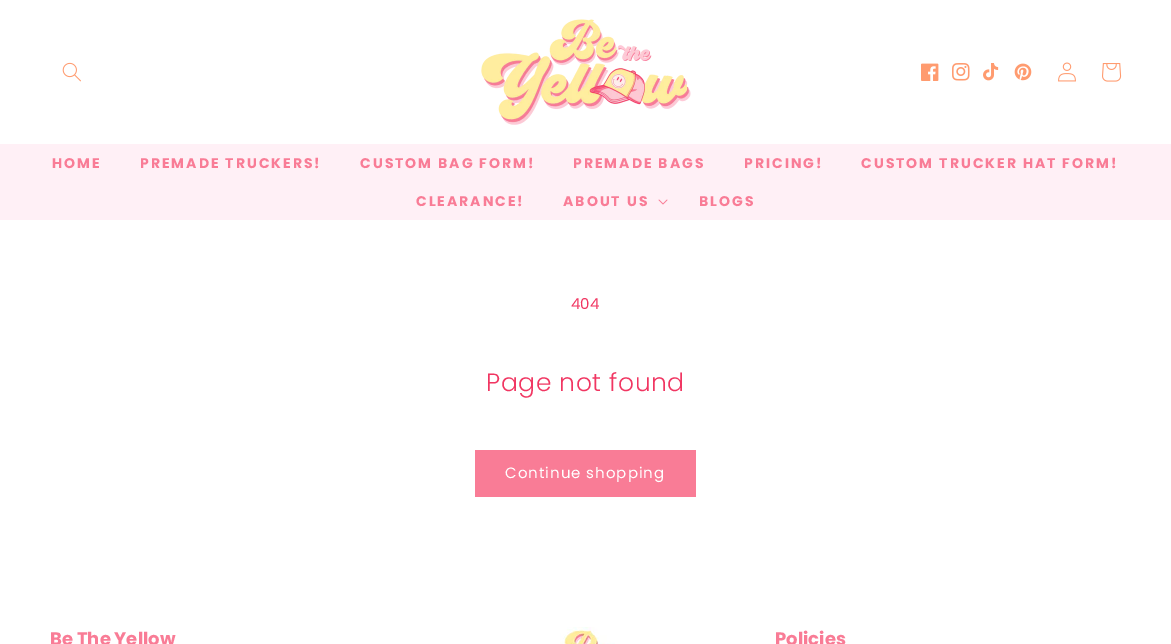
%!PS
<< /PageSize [1171 644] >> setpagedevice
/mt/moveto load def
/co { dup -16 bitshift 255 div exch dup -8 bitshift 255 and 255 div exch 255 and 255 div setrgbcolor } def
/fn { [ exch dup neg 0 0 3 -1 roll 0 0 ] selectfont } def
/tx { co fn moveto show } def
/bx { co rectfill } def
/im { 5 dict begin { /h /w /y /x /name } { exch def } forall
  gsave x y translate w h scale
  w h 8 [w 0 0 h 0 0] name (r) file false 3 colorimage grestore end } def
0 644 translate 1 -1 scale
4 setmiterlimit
0 0 1171 644 16#FFFFFF bx
(media/1.raw) 62 62 19 20 im
(media/2.raw) 481 19 210 106 im
(media/3.raw) 921 63 18 18 im
(media/4.raw) 952 63 18 18 im
(media/5.raw) 983 63 16 18 im
(media/6.raw) 1014 63 18 18 im
(media/7.raw) 1058 62 18 20 im
(media/8.raw) 1102 63 20 19 im
0 144 1171 76 16#FFF0F6 bx
(media/9.raw) 658 199 10 6 im
475 450 221 47 16#F97C96 bx
(media/10.raw) 560 627 55 17 im
/Poppins-Bold 14 fn
52 168 mt 2 0 (HOME) ashow
140 168 mt 2 0 (PREMADE TRUCKERS!) ashow
360 168 mt 2 0 (CUSTOM BAG FORM!) ashow
573 168 mt 2 0 (PREMADE BAGS) ashow
744 168 mt 2 0 (PRICING!) ashow
861 168 mt 2 0 (CUSTOM TRUCKER HAT FORM!) ashow
416 206 mt 2 0 (CLEARANCE!) ashow
563 206 mt 2 0 (ABOUT US) ashow
699 206 mt 2 0 (BLOGS) ashow
(404) 571 309 /Poppins-Regular 15 16#F13662 tx
/Poppins-Light 25 fn
486 391 mt .6 0 (Page not found) ashow
/Poppins-Regular 15 fn
16#FFFFFF co
505 478 mt 1 0 (Continue shopping) ashow
(Be The Yellow) 50 645 /Poppins-Bold 18 16#F97C96 tx
(Policies) 775 645 /Poppins-Bold 18 16#F97C96 tx
showpage
